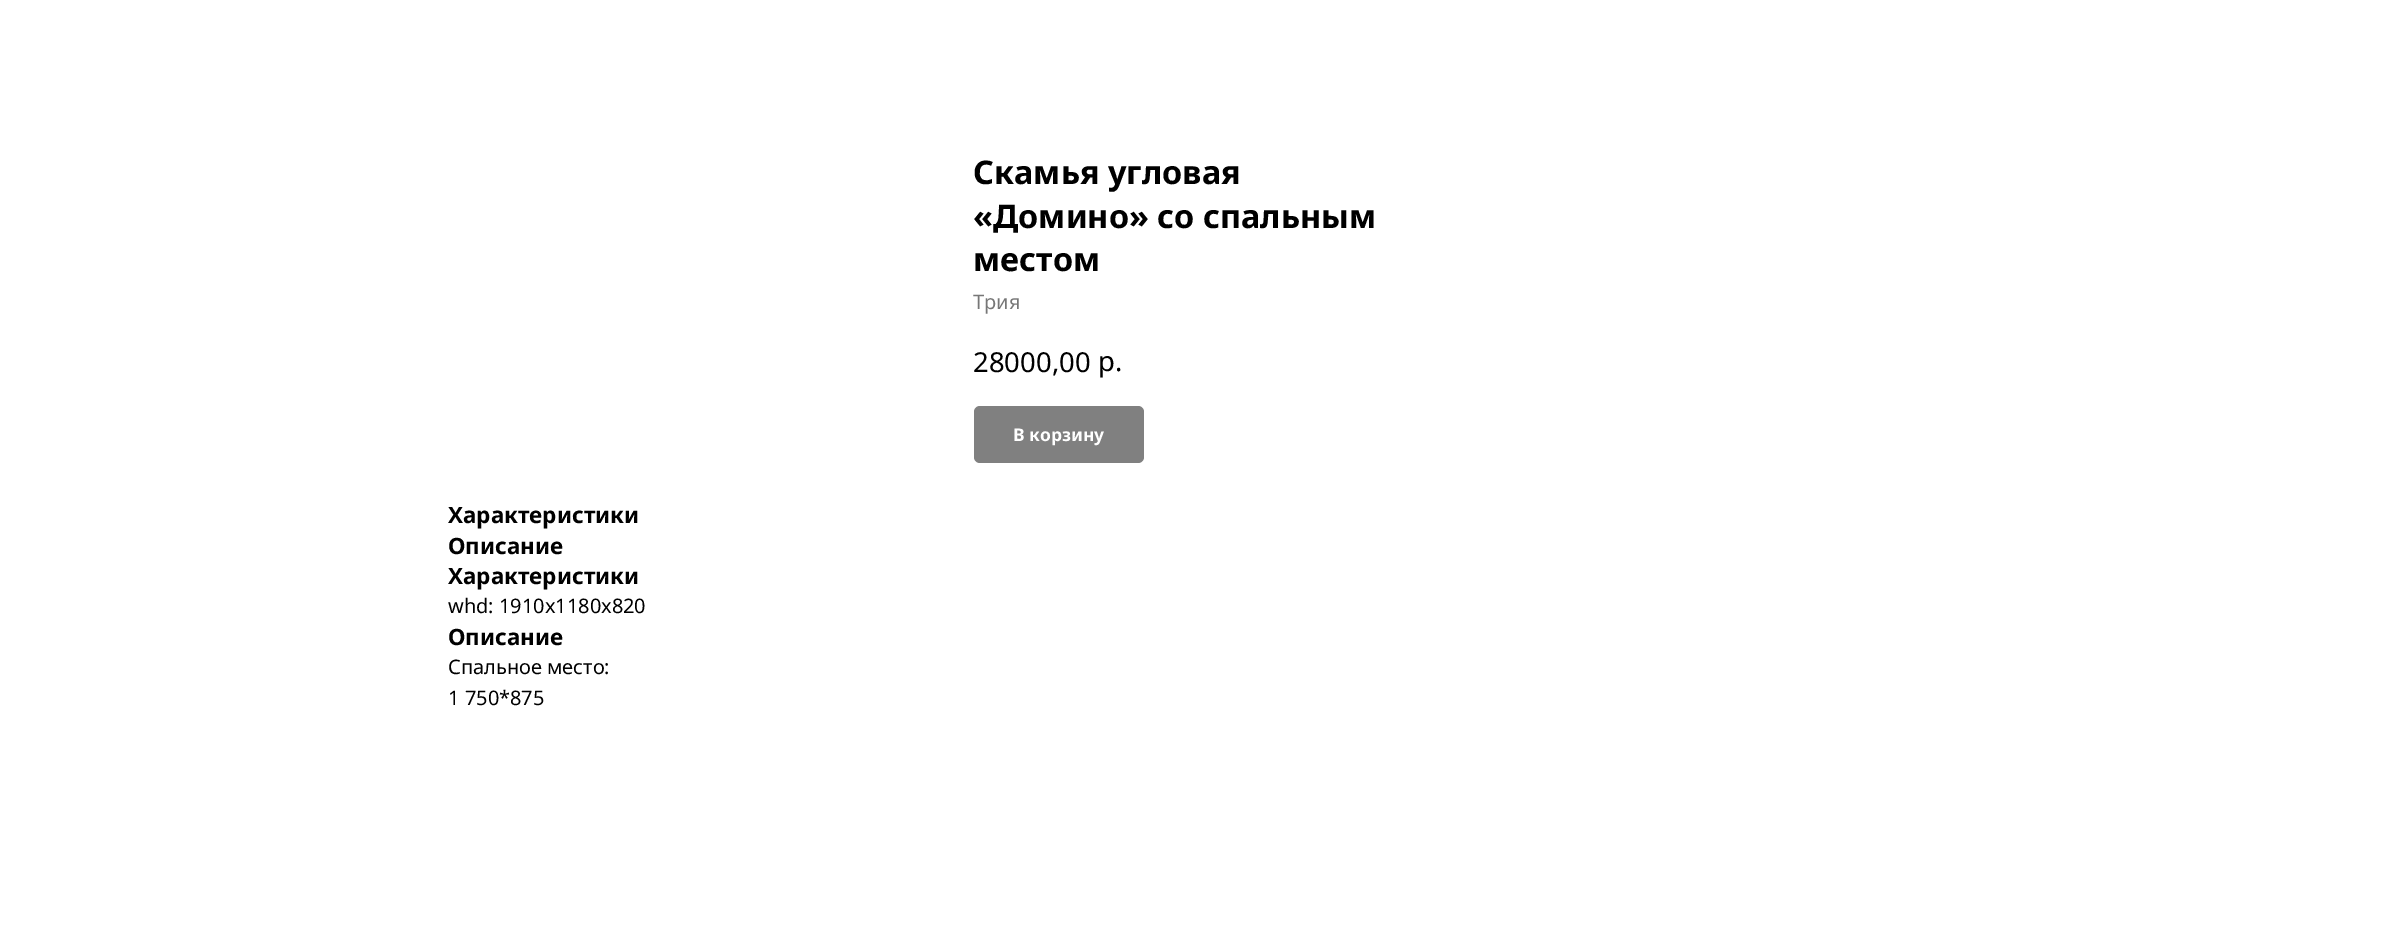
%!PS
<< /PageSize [2396 932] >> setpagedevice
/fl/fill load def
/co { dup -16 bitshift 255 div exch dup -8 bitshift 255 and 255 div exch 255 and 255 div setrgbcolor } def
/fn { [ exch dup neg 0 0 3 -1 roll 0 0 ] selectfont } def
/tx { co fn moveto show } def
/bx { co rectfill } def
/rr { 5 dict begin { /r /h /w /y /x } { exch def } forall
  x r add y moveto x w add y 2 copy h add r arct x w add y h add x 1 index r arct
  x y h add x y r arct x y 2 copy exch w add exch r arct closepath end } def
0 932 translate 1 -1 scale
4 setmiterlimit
0 0 2396 932 16#FFFFFF bx
16#808080 co
974 406 170 57 6 rr fl
(Скамья угловая) 973 184 /NotoSans-Bold 32.5 16#000000 tx
(«Домино» со спальным) 973 228 /NotoSans-Bold 32.5 16#000000 tx
(местом) 973 271 /NotoSans-Bold 32.5 16#000000 tx
(Трия) 973 309 /NotoSans-Regular 20 16#777777 tx
(28000,00) 973 372 /NotoSans-Regular 27.5 16#000000 tx
(р.) 1098 371 /NotoSans-Regular 27.5 16#000000 tx
(В корзину) 1013 441 /NotoSans-Bold 17.5 16#FFFFFF tx
(Характеристики) 448 523 /NotoSans-Bold 22.5 16#000000 tx
(Описание) 448 554 /NotoSans-Bold 22.5 16#000000 tx
(Характеристики) 448 584 /NotoSans-Bold 22.5 16#000000 tx
(whd: 1910x1180x820) 448 613 /NotoSans-Regular 20 16#000000 tx
(Описание) 448 645 /NotoSans-Bold 22.5 16#000000 tx
(Спальное место:) 448 674 /NotoSans-Regular 20 16#000000 tx
(1 750*875) 448 705 /NotoSans-Regular 20 16#000000 tx
showpage
